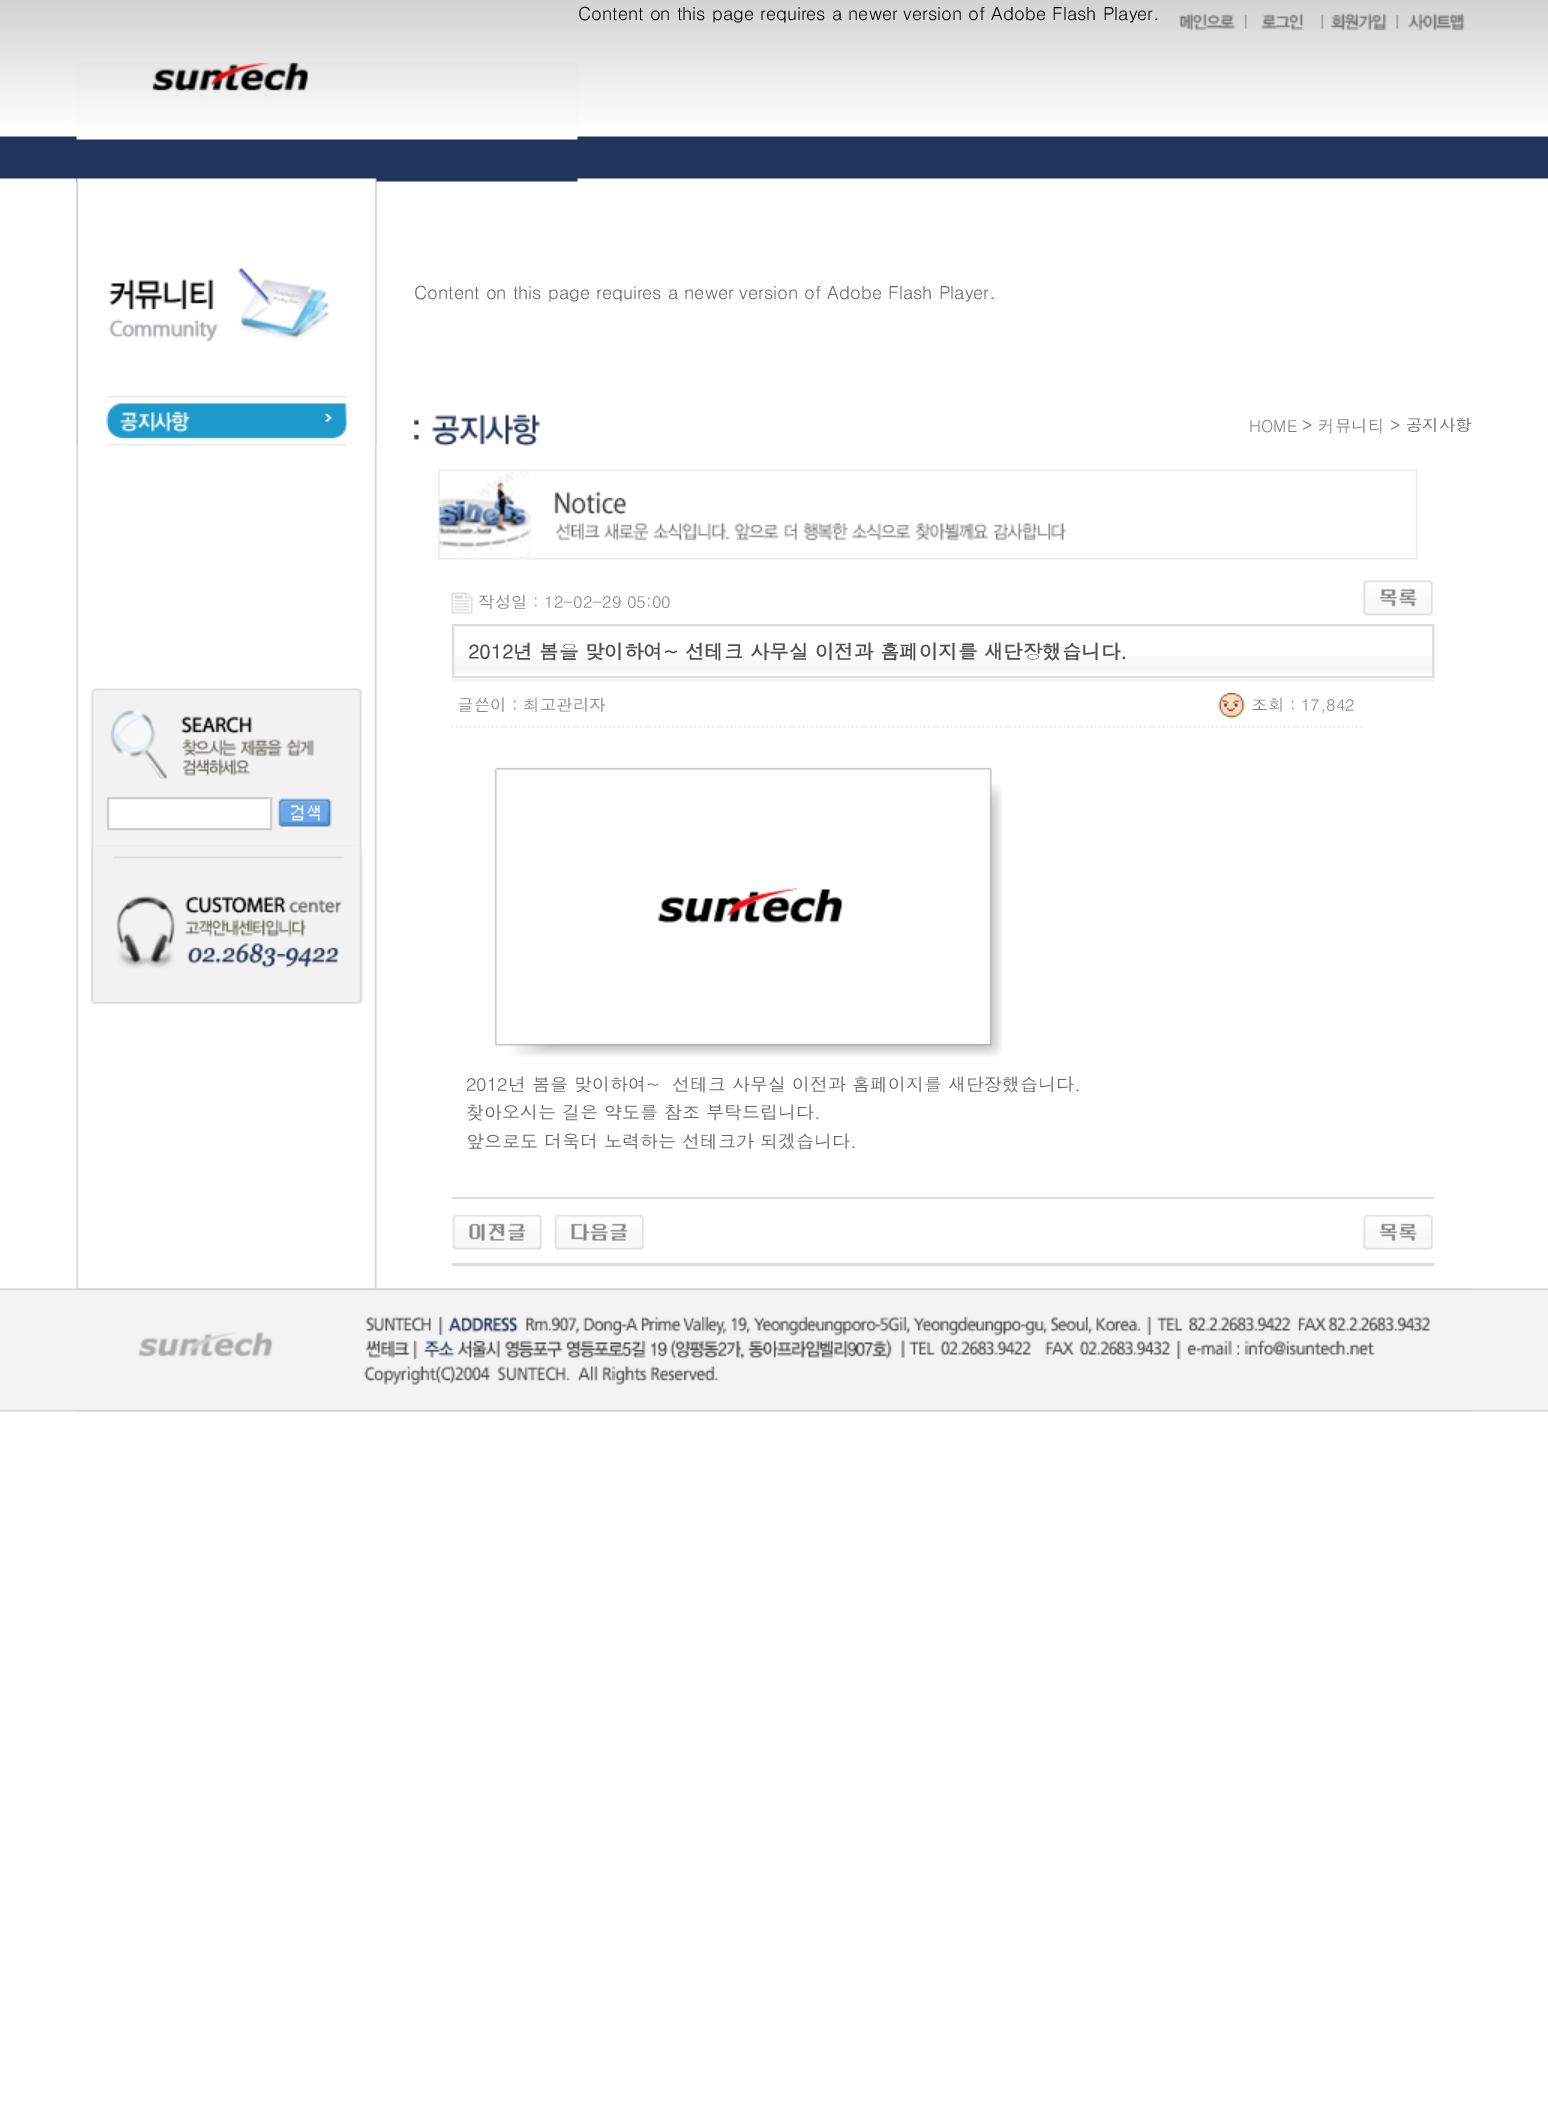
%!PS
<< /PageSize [1548 2127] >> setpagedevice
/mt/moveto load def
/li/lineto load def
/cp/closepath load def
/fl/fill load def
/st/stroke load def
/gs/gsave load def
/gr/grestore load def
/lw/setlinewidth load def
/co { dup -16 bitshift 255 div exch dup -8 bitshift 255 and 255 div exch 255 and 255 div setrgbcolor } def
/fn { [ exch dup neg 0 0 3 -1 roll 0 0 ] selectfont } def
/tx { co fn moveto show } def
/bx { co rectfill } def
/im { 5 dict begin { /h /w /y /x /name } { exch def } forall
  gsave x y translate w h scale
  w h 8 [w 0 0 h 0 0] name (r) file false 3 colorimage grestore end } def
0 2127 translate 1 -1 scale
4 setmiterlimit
0 0 1548 2127 16#FFFFFF bx
(media/1.raw) 0 0 1548 179 im
(media/2.raw) 1179 13 68 18 im
(media/3.raw) 1261 13 43 18 im
(media/4.raw) 1321 13 66 18 im
(media/5.raw) 1396 13 69 18 im
(media/7.raw) 76 178 301 1111 im
(media/6.raw) 76 62 502 120 im
(media/8.raw) 76 178 301 218 im
(media/9.raw) 76 396 301 50 im
(media/10.raw) 91 688 271 316 im
108 798 mt 271 798 li 271 829 li 108 829 li cp gs fl gr
16#CECECE co
2 lw
st
(media/11.raw) 277 798 55 29 im
(media/12.raw) 91 846 271 158 im
(media/13.raw) 414 413 127 33 im
(media/14.raw) 438 469 980 91 im
(media/15.raw) 451 592 22 22 im
(media/16.raw) 1363 580 70 36 im
(media/17.raw) 451 656 981 17 im
16#DDDDDD co
453 625 980 52 rectstroke
451 678 983 4 16#F6F6F6 bx
(media/18.raw) 451 725 914 3 im
(media/19.raw) 1218 693 27 26 im
(media/20.raw) 494 767 509 290 im
452 1197 982 2 16#DDDDDD bx
(media/21.raw) 452 1214 90 36 im
(media/22.raw) 554 1214 90 36 im
(media/23.raw) 1363 1214 70 36 im
452 1263 982 3 16#DEDEDE bx
(media/24.raw) 0 1288 1548 124 im
(media/25.raw) 76 1288 1396 124 im
(Content on this page requires a newer version of Adobe Flash Player.) 578 20 /Dotum-Regular 18 16#000000 tx
(Content on this page requires a newer version of Adobe Flash Player.) 414 299 /Dotum-Regular 18 16#666666 tx
(HOME) 1249 432 /Dotum-Regular 16.5 16#818181 tx
(>) 1302 431 /Dotum-Regular 16.5 16#666666 tx
(커뮤니티) 1318 432 /Dotum-Regular 16.5 16#818181 tx
(> 공지사항) 1390 431 /Dotum-Regular 16.5 16#666666 tx
(작성일 : 12-02-29 05:00) 478 608 /Dotum-Regular 16.5 16#888888 tx
(2012년 봄을 맞이하여~ 선테크 사무실 이전과 홈페이지를 새단장했습니다.) 468 659 /Dotum-Bold 19.5 16#505050 tx
(글쓴이 : 최고관리자) 457 711 /Dotum-Regular 16.5 16#888888 tx
(조회 : 17,842) 1251 711 /Dotum-Regular 16.5 16#888888 tx
(2012년 봄을 맞이하여~  선테크 사무실 이전과 홈페이지를 새단장했습니다.) 466 1091 /Dotum-Regular 18 16#666666 tx
(찾아오시는 길은 약도를 참조 부탁드립니다.) 466 1119 /Dotum-Regular 18 16#666666 tx
(앞으로도 더욱더 노력하는 선테크가 되겠습니다.) 466 1148 /Dotum-Regular 18 16#666666 tx
showpage
